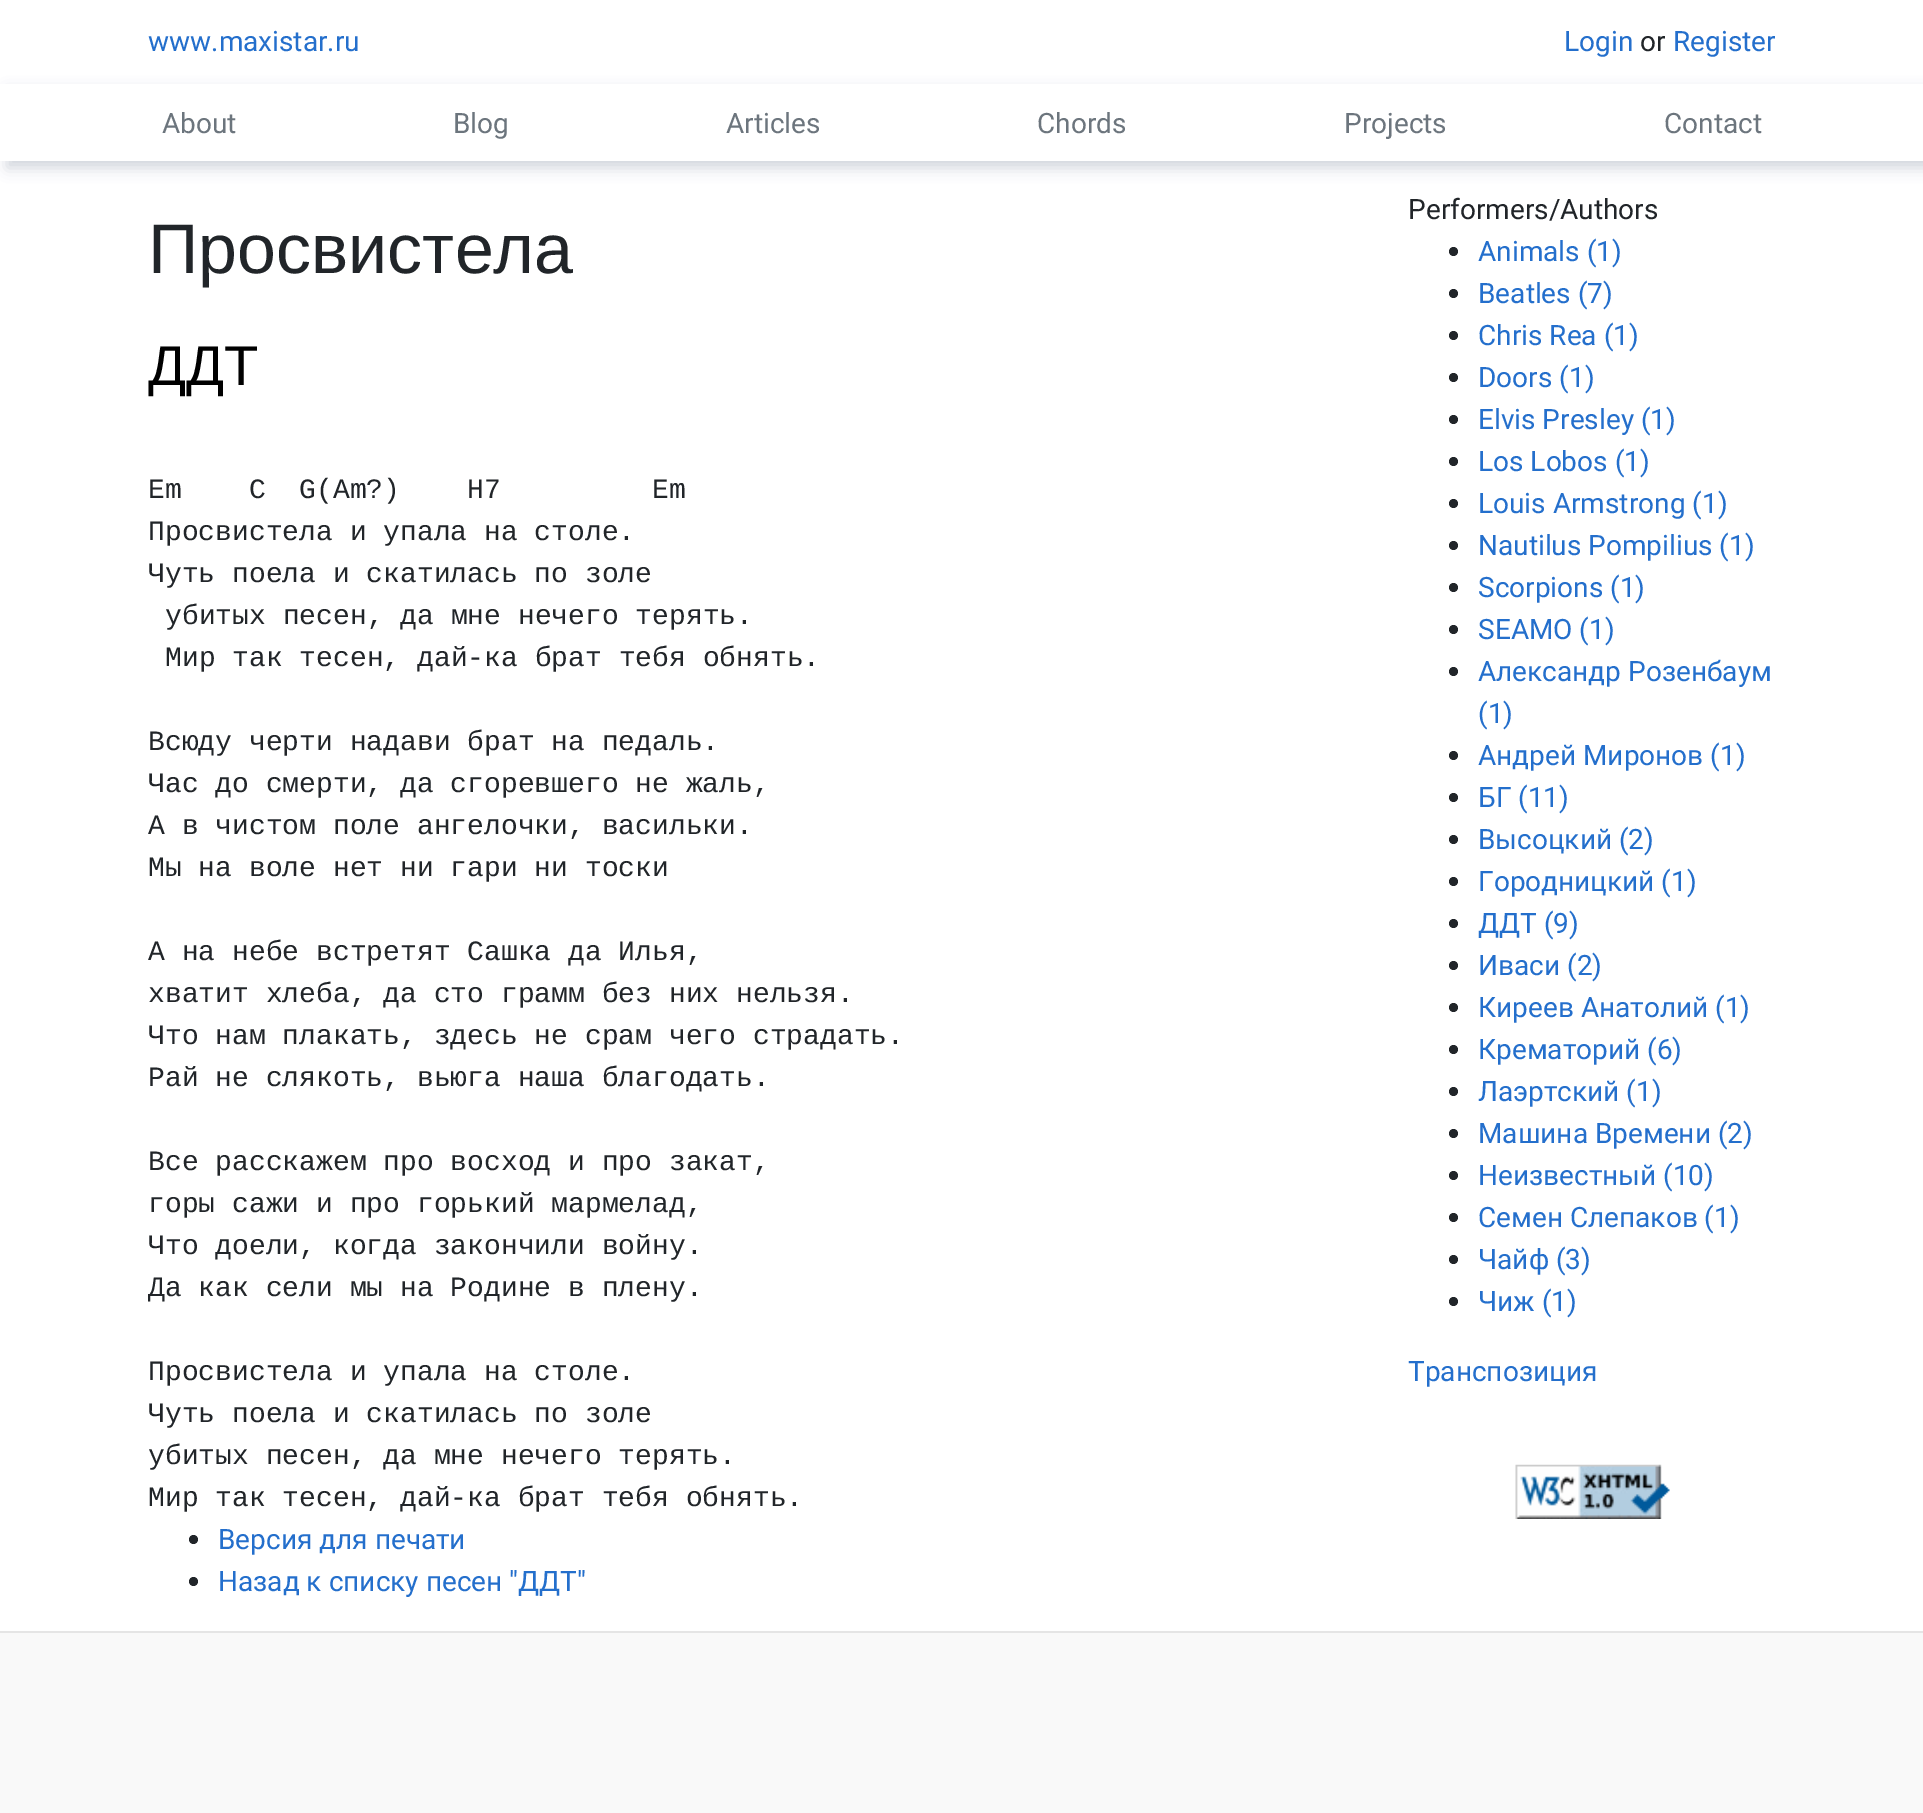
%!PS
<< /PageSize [1923 1813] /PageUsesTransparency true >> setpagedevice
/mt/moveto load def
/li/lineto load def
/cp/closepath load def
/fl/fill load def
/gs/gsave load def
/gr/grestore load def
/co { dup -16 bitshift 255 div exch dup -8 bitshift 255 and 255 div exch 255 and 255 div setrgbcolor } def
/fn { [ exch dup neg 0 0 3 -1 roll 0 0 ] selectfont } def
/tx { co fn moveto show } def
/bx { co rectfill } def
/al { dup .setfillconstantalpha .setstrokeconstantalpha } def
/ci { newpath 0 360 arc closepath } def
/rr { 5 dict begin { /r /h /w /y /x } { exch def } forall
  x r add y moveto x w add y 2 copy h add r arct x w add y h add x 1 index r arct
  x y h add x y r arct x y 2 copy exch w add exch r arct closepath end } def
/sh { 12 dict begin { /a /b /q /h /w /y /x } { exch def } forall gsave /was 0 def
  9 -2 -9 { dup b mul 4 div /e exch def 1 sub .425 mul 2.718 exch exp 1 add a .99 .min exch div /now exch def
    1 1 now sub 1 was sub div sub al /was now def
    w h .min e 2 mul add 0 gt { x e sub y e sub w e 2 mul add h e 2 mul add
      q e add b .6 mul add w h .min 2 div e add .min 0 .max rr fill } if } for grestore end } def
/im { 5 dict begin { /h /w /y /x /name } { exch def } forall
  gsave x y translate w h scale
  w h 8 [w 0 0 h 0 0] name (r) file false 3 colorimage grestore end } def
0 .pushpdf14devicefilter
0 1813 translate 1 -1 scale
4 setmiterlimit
0 0 1923 1813 16#FFFFFF bx
gs
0 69 mt 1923 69 li 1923 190 li 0 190 li cp 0 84 mt 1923 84 li 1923 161 li 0 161 li cp eoclip newpath
16#223C50 co
7 91 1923 77 0 7 .2 sh
gr
16#212529 co
193.5 1539.5 4.5 ci fl
193.5 1581.5 4.5 ci fl
1453.5 251.5 4.5 ci fl
1453.5 293.5 4.5 ci fl
1453.5 335.5 4.5 ci fl
1453.5 377.5 4.5 ci fl
1453.5 419.5 4.5 ci fl
1453.5 461.5 4.5 ci fl
1453.5 503.5 4.5 ci fl
1453.5 545.5 4.5 ci fl
1453.5 587.5 4.5 ci fl
1453.5 629.5 4.5 ci fl
1453.5 671.5 4.5 ci fl
1453.5 755.5 4.5 ci fl
1453.5 797.5 4.5 ci fl
1453.5 839.5 4.5 ci fl
1453.5 881.5 4.5 ci fl
1453.5 923.5 4.5 ci fl
1453.5 965.5 4.5 ci fl
1453.5 1007.5 4.5 ci fl
1453.5 1049.5 4.5 ci fl
1453.5 1091.5 4.5 ci fl
1453.5 1133.5 4.5 ci fl
1453.5 1175.5 4.5 ci fl
1453.5 1217.5 4.5 ci fl
1453.5 1259.5 4.5 ci fl
1453.5 1301.5 4.5 ci fl
(media/1.raw) 1515 1464 155 55 im
0 1633 1923 180 16#F9F9F9 bx
0 1631 1923 2 16#E5E5E5 bx
(www.maxistar.ru) 148 51 /Roboto-Regular 28 16#246FCC tx
(Login) 1564 51 /Roboto-Regular 28 16#246FCC tx
(or) 1640 51 /Roboto-Regular 28 16#212529 tx
(Register) 1673 51 /Roboto-Regular 28 16#246FCC tx
(About) 162 133 /Roboto-Regular 28 16#6C757D tx
(Blog) 453 133 /Roboto-Regular 28 16#6C757D tx
(Articles) 726 133 /Roboto-Regular 28 16#6C757D tx
(Chords) 1037 133 /Roboto-Regular 28 16#6C757D tx
(Projects) 1344 133 /Roboto-Regular 28 16#6C757D tx
(Contact) 1664 133 /Roboto-Regular 28 16#6C757D tx
(Просвистела) 148 273 /LiberationSans-Regular 70 16#212529 tx
(ДДТ) 148 385 /LiberationSans-Regular 56 16#000000 tx
(Em    C  G\(Am?\)    H7         Em) 148 498 /LiberationMono-Regular 28 16#212529 tx
(Просвистела и упала на столе.) 148 540 /LiberationMono-Regular 28 16#212529 tx
(Чуть поела и скатилась по золе) 148 582 /LiberationMono-Regular 28 16#212529 tx
(убитых песен, да мне нечего терять.) 165 624 /LiberationMono-Regular 28 16#212529 tx
(Мир так тесен, дай-ка брат тебя обнять.) 165 666 /LiberationMono-Regular 28 16#212529 tx
(Всюду черти надави брат на педаль.) 148 750 /LiberationMono-Regular 28 16#212529 tx
(Час до смерти, да сгоревшего не жаль,) 148 792 /LiberationMono-Regular 28 16#212529 tx
(А в чистом поле ангелочки, васильки.) 148 834 /LiberationMono-Regular 28 16#212529 tx
(Мы на воле нет ни гари ни тоски) 148 876 /LiberationMono-Regular 28 16#212529 tx
(А на небе встретят Сашка да Илья,) 148 960 /LiberationMono-Regular 28 16#212529 tx
(хватит хлеба, да сто грамм без них нельзя.) 148 1002 /LiberationMono-Regular 28 16#212529 tx
(Что нам плакать, здесь не срам чего страдать.) 148 1044 /LiberationMono-Regular 28 16#212529 tx
(Рай не слякоть, вьюга наша благодать.) 148 1086 /LiberationMono-Regular 28 16#212529 tx
(Все расскажем про восход и про закат,) 148 1170 /LiberationMono-Regular 28 16#212529 tx
(горы сажи и про горький мармелад,) 148 1212 /LiberationMono-Regular 28 16#212529 tx
(Что доели, когда закончили войну.) 148 1254 /LiberationMono-Regular 28 16#212529 tx
(Да как сели мы на Родине в плену.) 148 1296 /LiberationMono-Regular 28 16#212529 tx
(Просвистела и упала на столе.) 148 1380 /LiberationMono-Regular 28 16#212529 tx
(Чуть поела и скатилась по золе) 148 1422 /LiberationMono-Regular 28 16#212529 tx
(убитых песен, да мне нечего терять.) 148 1464 /LiberationMono-Regular 28 16#212529 tx
(Мир так тесен, дай-ка брат тебя обнять.) 148 1506 /LiberationMono-Regular 28 16#212529 tx
(Версия для печати) 218 1549 /Roboto-Regular 28 16#246FCC tx
(Назад к списку песен "ДДТ") 218 1591 /Roboto-Regular 28 16#246FCC tx
(Performers/Authors) 1408 219 /Roboto-Regular 28 16#212529 tx
(Animals \(1\)) 1478 261 /Roboto-Regular 28 16#246FCC tx
(Beatles \(7\)) 1478 303 /Roboto-Regular 28 16#246FCC tx
(Chris Rea \(1\)) 1478 345 /Roboto-Regular 28 16#246FCC tx
(Doors \(1\)) 1478 387 /Roboto-Regular 28 16#246FCC tx
(Elvis Presley \(1\)) 1478 429 /Roboto-Regular 28 16#246FCC tx
(Los Lobos \(1\)) 1478 471 /Roboto-Regular 28 16#246FCC tx
(Louis Armstrong \(1\)) 1478 513 /Roboto-Regular 28 16#246FCC tx
(Nautilus Pompilius \(1\)) 1478 555 /Roboto-Regular 28 16#246FCC tx
(Scorpions \(1\)) 1478 597 /Roboto-Regular 28 16#246FCC tx
(SEAMO \(1\)) 1478 639 /Roboto-Regular 28 16#246FCC tx
(Александр Розенбаум) 1478 681 /Roboto-Regular 28 16#246FCC tx
(\(1\)) 1478 723 /Roboto-Regular 28 16#246FCC tx
(Андрей Миронов \(1\)) 1478 765 /Roboto-Regular 28 16#246FCC tx
(БГ \(11\)) 1478 807 /Roboto-Regular 28 16#246FCC tx
(Высоцкий \(2\)) 1478 849 /Roboto-Regular 28 16#246FCC tx
(Городницкий \(1\)) 1478 891 /Roboto-Regular 28 16#246FCC tx
(ДДТ \(9\)) 1478 933 /Roboto-Regular 28 16#246FCC tx
(Иваси \(2\)) 1478 975 /Roboto-Regular 28 16#246FCC tx
(Киреев Анатолий \(1\)) 1478 1017 /Roboto-Regular 28 16#246FCC tx
(Крематорий \(6\)) 1478 1059 /Roboto-Regular 28 16#246FCC tx
(Лаэртский \(1\)) 1478 1101 /Roboto-Regular 28 16#246FCC tx
(Машина Времени \(2\)) 1478 1143 /Roboto-Regular 28 16#246FCC tx
(Неизвестный \(10\)) 1478 1185 /Roboto-Regular 28 16#246FCC tx
(Семен Слепаков \(1\)) 1478 1227 /Roboto-Regular 28 16#246FCC tx
(Чайф \(3\)) 1478 1269 /Roboto-Regular 28 16#246FCC tx
(Чиж \(1\)) 1478 1311 /Roboto-Regular 28 16#246FCC tx
(Транспозиция) 1408 1381 /Roboto-Regular 28 16#246FCC tx
.poppdf14devicefilter showpage
